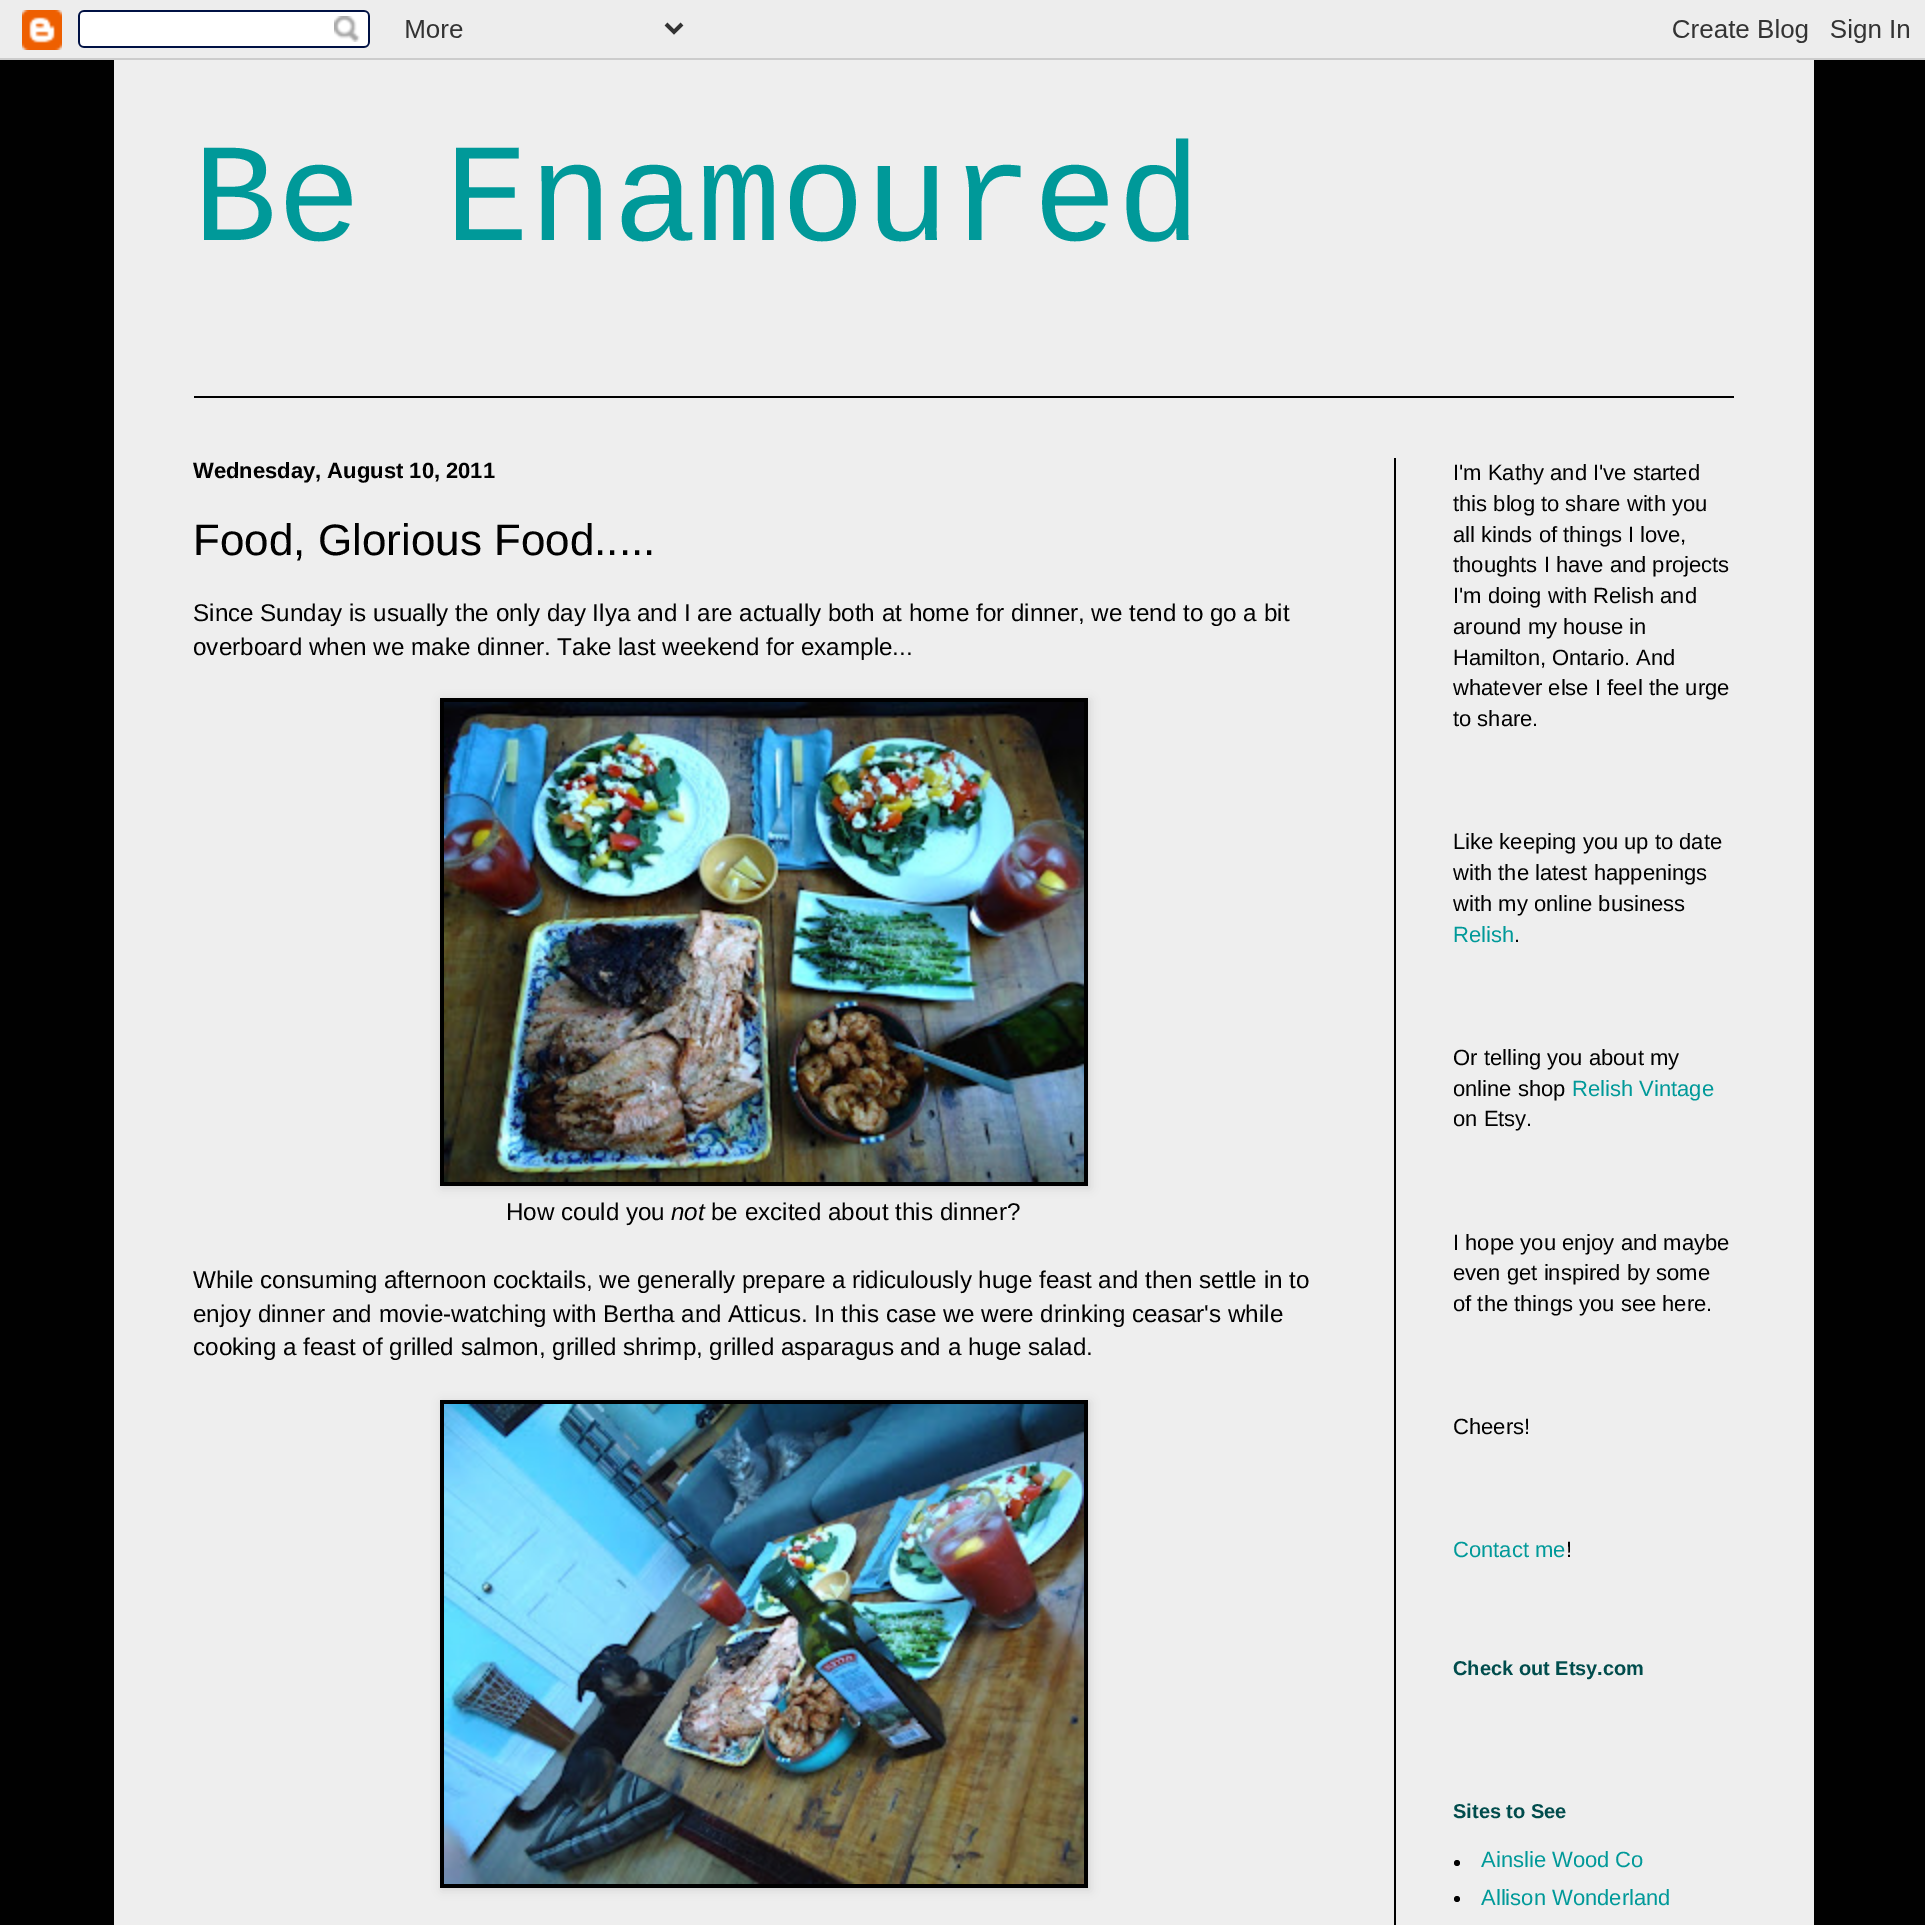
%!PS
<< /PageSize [1925 1925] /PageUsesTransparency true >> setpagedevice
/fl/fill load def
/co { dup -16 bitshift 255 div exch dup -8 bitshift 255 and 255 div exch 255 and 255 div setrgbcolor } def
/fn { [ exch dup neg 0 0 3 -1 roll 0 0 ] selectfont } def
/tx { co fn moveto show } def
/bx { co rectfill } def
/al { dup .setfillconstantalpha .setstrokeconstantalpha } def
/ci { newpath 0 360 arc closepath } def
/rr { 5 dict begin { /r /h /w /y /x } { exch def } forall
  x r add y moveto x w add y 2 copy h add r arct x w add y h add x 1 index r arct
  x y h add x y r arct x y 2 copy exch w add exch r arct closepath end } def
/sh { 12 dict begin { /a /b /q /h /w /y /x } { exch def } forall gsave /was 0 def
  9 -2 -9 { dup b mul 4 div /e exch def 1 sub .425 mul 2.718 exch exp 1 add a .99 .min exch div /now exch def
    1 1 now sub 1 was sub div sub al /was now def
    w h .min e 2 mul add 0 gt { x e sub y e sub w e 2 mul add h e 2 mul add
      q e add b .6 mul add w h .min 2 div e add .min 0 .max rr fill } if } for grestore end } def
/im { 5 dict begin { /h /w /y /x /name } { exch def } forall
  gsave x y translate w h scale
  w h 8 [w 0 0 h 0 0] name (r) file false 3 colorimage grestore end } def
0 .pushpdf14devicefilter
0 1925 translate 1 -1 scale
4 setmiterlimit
0 0 1925 1925 16#010101 bx
(media/1.raw) 0 0 1925 60 im
114 60 1700 1865 16#EEEEEE bx
194 396 1540 2 16#000000 bx
1394 458 2 1467 16#000000 bx
442 700 648 488 0 5 .1 sh
440 698 648 488 16#000000 bx
(media/2.raw) 444 702 640 480 im
442 1402 648 488 0 5 .1 sh
440 1400 648 488 16#000000 bx
(media/3.raw) 444 1404 640 480 im
16#010101 co
1457 1863 3 ci fl
1457 1899 3 ci fl
(Be Enamoured) 193 240 /LiberationMono-Regular 140 16#009999 tx
(Wednesday, August 10, 2011) 193 478 /LiberationSans-Bold 22 16#010101 tx
(Food, Glorious Food.....) 193 555 /LiberationSans-Regular 44 16#010101 tx
(Since Sunday is usually the only day Ilya and I are actually both at home for dinner, we tend to go a bit) 193 621 /LiberationSans-Regular 24.2 16#010101 tx
(overboard when we make dinner. Take last weekend for example...) 193 655 /LiberationSans-Regular 24.2 16#010101 tx
(How could you) 506 1220 /LiberationSans-Regular 24.2 16#010101 tx
(not) 671 1220 /LiberationSans-Italic 24.2 16#010101 tx
(be excited about this dinner?) 711 1220 /LiberationSans-Regular 24.2 16#010101 tx
(While consuming afternoon cocktails, we generally prepare a ridiculously huge feast and then settle in to) 193 1288 /LiberationSans-Regular 24.2 16#010101 tx
(enjoy dinner and movie-watching with Bertha and Atticus. In this case we were drinking ceasar's while) 193 1322 /LiberationSans-Regular 24.2 16#010101 tx
(cooking a feast of grilled salmon, grilled shrimp, grilled asparagus and a huge salad.) 193 1355 /LiberationSans-Regular 24.2 16#010101 tx
(I'm Kathy and I've started) 1453 480 /LiberationSans-Regular 22 16#010101 tx
(this blog to share with you) 1453 511 /LiberationSans-Regular 22 16#010101 tx
(all kinds of things I love,) 1453 542 /LiberationSans-Regular 22 16#010101 tx
(thoughts I have and projects) 1453 572 /LiberationSans-Regular 22 16#010101 tx
(I'm doing with Relish and) 1453 603 /LiberationSans-Regular 22 16#010101 tx
(around my house in) 1453 634 /LiberationSans-Regular 22 16#010101 tx
(Hamilton, Ontario. And) 1453 665 /LiberationSans-Regular 22 16#010101 tx
(whatever else I feel the urge) 1453 695 /LiberationSans-Regular 22 16#010101 tx
(to share.) 1453 726 /LiberationSans-Regular 22 16#010101 tx
(Like keeping you up to date) 1453 849 /LiberationSans-Regular 22 16#010101 tx
(with the latest happenings) 1453 880 /LiberationSans-Regular 22 16#010101 tx
(with my online business) 1453 911 /LiberationSans-Regular 22 16#010101 tx
(Relish) 1453 942 /LiberationSans-Regular 22 16#009999 tx
(.) 1514 942 /LiberationSans-Regular 22 16#010101 tx
(Or telling you about my) 1453 1065 /LiberationSans-Regular 22 16#010101 tx
(online shop) 1453 1096 /LiberationSans-Regular 22 16#010101 tx
(Relish Vintage) 1572 1096 /LiberationSans-Regular 22 16#009999 tx
(on Etsy.) 1453 1126 /LiberationSans-Regular 22 16#010101 tx
(I hope you enjoy and maybe) 1453 1250 /LiberationSans-Regular 22 16#010101 tx
(even get inspired by some) 1453 1280 /LiberationSans-Regular 22 16#010101 tx
(of the things you see here.) 1453 1311 /LiberationSans-Regular 22 16#010101 tx
(Cheers!) 1453 1434 /LiberationSans-Regular 22 16#010101 tx
(Contact me) 1453 1557 /LiberationSans-Regular 22 16#009999 tx
(!) 1566 1557 /LiberationSans-Regular 22 16#010101 tx
(Check out Etsy.com) 1453 1675 /LiberationSans-Bold 20 16#004C4C tx
(Sites to See) 1453 1818 /LiberationSans-Bold 20 16#004C4C tx
(Ainslie Wood Co) 1481 1867 /LiberationSans-Regular 22 16#009999 tx
(Allison Wonderland) 1481 1905 /LiberationSans-Regular 22 16#009999 tx
.poppdf14devicefilter showpage
